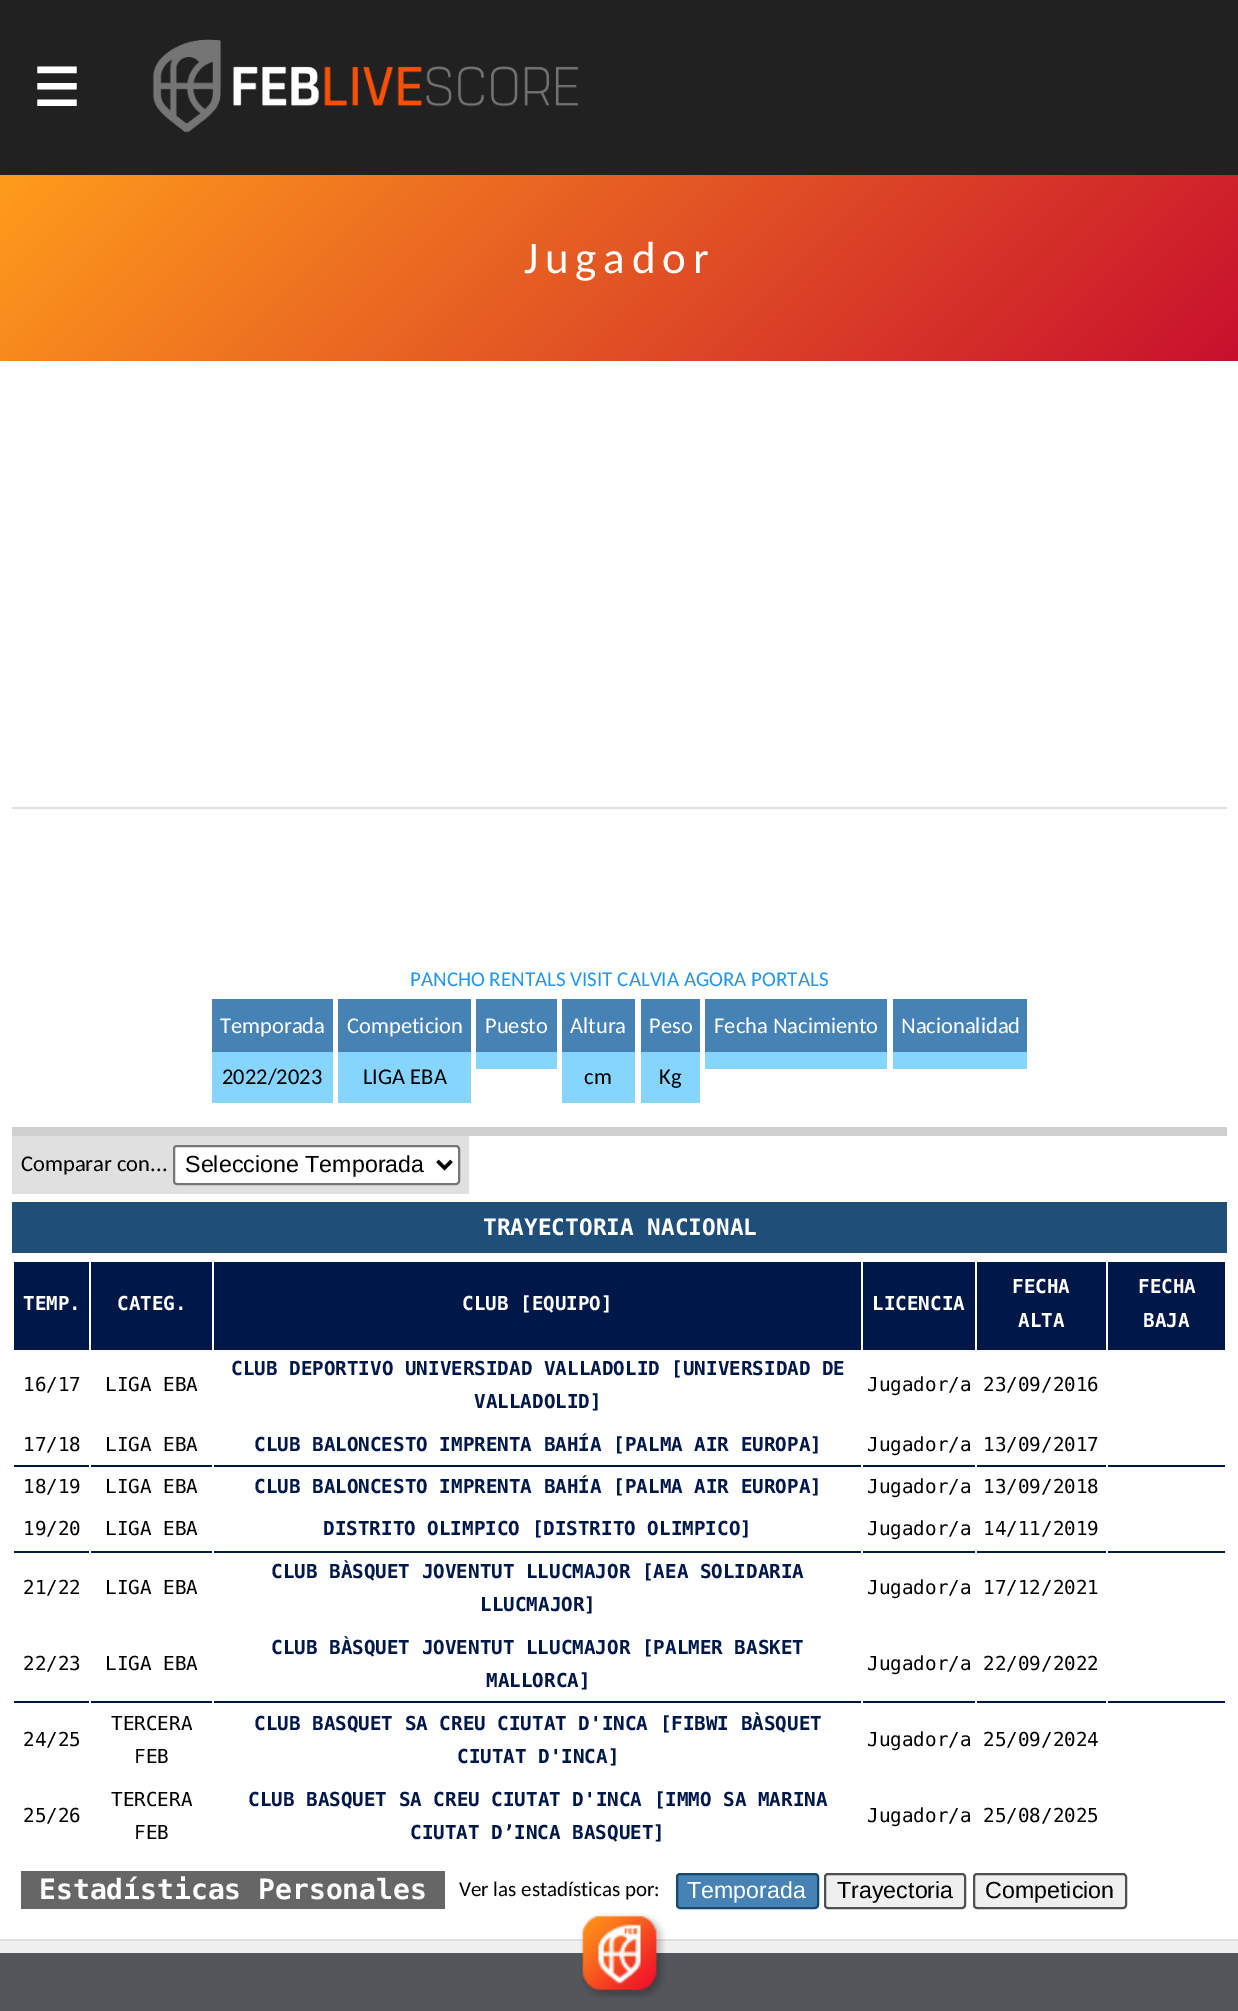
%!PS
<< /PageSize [1238 2011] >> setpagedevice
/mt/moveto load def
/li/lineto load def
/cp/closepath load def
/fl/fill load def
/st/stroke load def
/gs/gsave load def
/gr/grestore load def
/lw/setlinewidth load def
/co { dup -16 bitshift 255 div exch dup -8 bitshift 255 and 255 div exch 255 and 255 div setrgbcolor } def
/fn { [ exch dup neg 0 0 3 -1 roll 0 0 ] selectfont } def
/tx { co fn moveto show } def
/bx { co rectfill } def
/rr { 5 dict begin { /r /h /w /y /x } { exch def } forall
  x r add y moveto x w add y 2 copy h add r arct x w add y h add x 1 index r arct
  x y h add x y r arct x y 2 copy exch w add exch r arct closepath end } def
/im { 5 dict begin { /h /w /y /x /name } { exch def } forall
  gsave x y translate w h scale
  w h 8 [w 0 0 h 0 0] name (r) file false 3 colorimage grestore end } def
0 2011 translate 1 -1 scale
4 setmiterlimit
0 0 1238 2011 16#212121 bx
(media/1.raw) 152 39 427 94 im
0 361 1238 1578 16#FFFFFF bx
gs 0 175 mt 1238 175 li 1238 361 li 0 361 li cp clip newpath
<< /ShadingType 2 /ColorSpace /DeviceRGB /Coords [263 -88 976 624] /Extend [true true] /Function << /FunctionType 2 /Domain [0 1] /C0 [1 .612 .106] /C1 [.784 .063 .18] /N 1 >> >> shfill gr
12 1127 1215 9 16#D0D0D0 bx
12 807 1215 2 16#E0E0E0 bx
212 999 121 53 16#4682B4 bx
212 1052 121 51 16#85D5FF bx
338 999 133 53 16#4682B4 bx
338 1052 133 51 16#85D5FF bx
476 999 81 53 16#4682B4 bx
476 1052 81 17 16#85D5FF bx
562 999 73 53 16#4682B4 bx
562 1052 73 51 16#85D5FF bx
641 999 59 53 16#4682B4 bx
641 1052 59 51 16#85D5FF bx
705 999 182 53 16#4682B4 bx
705 1052 182 17 16#85D5FF bx
893 999 134 53 16#4682B4 bx
893 1052 134 17 16#85D5FF bx
12 1136 457 58 16#E0E0E0 bx
16#FFFFFF co
174 1146 285 38 3 rr gs fl gr
16#767676 co
2 lw
st
16#000000 co
3.5 lw
437.5 1161 mt 444.5 1168 li 451.5 1161 li st
12 1202 1215 51 16#1F4E78 bx
14 1262 75 86 16#001848 bx
91 1262 121 86 16#001848 bx
214 1262 647 86 16#001848 bx
863 1262 112 86 16#001848 bx
977 1262 129 86 16#001848 bx
1108 1262 117 86 16#001848 bx
12 1348 1215 2 16#001848 bx
1225 1348 2 2 16#FFFFFF bx
89 1348 2 2 16#FFFFFF bx
12 1348 2 2 16#FFFFFF bx
212 1348 2 2 16#FFFFFF bx
861 1348 2 2 16#FFFFFF bx
975 1348 2 2 16#FFFFFF bx
1106 1348 2 2 16#FFFFFF bx
12 1465 1215 2 16#001848 bx
1225 1465 2 2 16#FFFFFF bx
89 1465 2 2 16#FFFFFF bx
12 1465 2 2 16#FFFFFF bx
212 1465 2 2 16#FFFFFF bx
861 1465 2 2 16#FFFFFF bx
975 1465 2 2 16#FFFFFF bx
1106 1465 2 2 16#FFFFFF bx
12 1551 1215 2 16#001848 bx
1225 1551 2 2 16#FFFFFF bx
89 1551 2 2 16#FFFFFF bx
12 1551 2 2 16#FFFFFF bx
212 1551 2 2 16#FFFFFF bx
861 1551 2 2 16#FFFFFF bx
975 1551 2 2 16#FFFFFF bx
1106 1551 2 2 16#FFFFFF bx
12 1701 1215 2 16#001848 bx
1225 1701 2 2 16#FFFFFF bx
89 1701 2 2 16#FFFFFF bx
12 1701 2 2 16#FFFFFF bx
212 1701 2 2 16#FFFFFF bx
861 1701 2 2 16#FFFFFF bx
975 1701 2 2 16#FFFFFF bx
1106 1701 2 2 16#FFFFFF bx
21 1871 424 38 16#666666 bx
16#4682B4 co
677 1874 141 34 3 rr gs fl gr
16#144A6B co
2 lw
st
16#EFEFEF co
825 1874 140 34 3 rr gs fl gr
16#4F4F4F co
st
16#EFEFEF co
974 1874 152 34 3 rr gs fl gr
16#4F4F4F co
st
0 1941 1238 12 16#F0F0F0 bx
0 1939 1238 2 16#E0E0E0 bx
0 1953 1238 58 16#53565A bx
(media/2.raw) 580 1913 86 85 im
(☰) 33 106 /DejaVuSans-Bold 52 16#FFFFFF tx
/Carlito-Regular 45 fn
524 273 mt 6.75 0 (Jugador) ashow
(PANCHO RENTALS VISIT CALVIA AGORA PORTALS) 410 986 /Carlito-Regular 21 16#2196F3 tx
(Temporada) 220 1033 /Carlito-Regular 22.5 16#FFFFFF tx
(2022/2023) 222 1084 /Carlito-Regular 22.5 16#000000 tx
(Competicion) 347 1033 /Carlito-Regular 22.5 16#FFFFFF tx
(LIGA EBA) 363 1084 /Carlito-Regular 22.5 16#000000 tx
(Puesto) 485 1033 /Carlito-Regular 22.5 16#FFFFFF tx
(Altura) 570 1033 /Carlito-Regular 22.5 16#FFFFFF tx
(cm) 584 1084 /Carlito-Regular 22.5 16#000000 tx
(Peso) 649 1033 /Carlito-Regular 22.5 16#FFFFFF tx
(Kg) 659 1084 /Carlito-Regular 22.5 16#000000 tx
(Fecha Nacimiento) 714 1033 /Carlito-Regular 22.5 16#FFFFFF tx
(Nacionalidad) 901 1033 /Carlito-Regular 22.5 16#FFFFFF tx
(Comparar con...) 21 1171 /Carlito-Regular 22.5 16#000000 tx
(Seleccione Temporada) 185 1172 /LiberationSans-Regular 23.25 16#000000 tx
(TRAYECTORIA NACIONAL) 483 1235 /DejaVuSansMono-Bold 22.75 16#FFFFFF tx
(TEMP.) 23 1310 /DejaVuSansMono-Bold 19.25 16#FFFFFF tx
(CATEG.) 117 1310 /DejaVuSansMono-Bold 19.25 16#FFFFFF tx
(CLUB [EQUIPO]) 462 1310 /DejaVuSansMono-Bold 19.25 16#FFFFFF tx
(LICENCIA) 872 1310 /DejaVuSansMono-Bold 19.25 16#FFFFFF tx
(FECHA) 1012 1293 /DejaVuSansMono-Bold 19.25 16#FFFFFF tx
(ALTA) 1018 1327 /DejaVuSansMono-Bold 19.25 16#FFFFFF tx
(FECHA) 1138 1293 /DejaVuSansMono-Bold 19.25 16#FFFFFF tx
(BAJA) 1143 1327 /DejaVuSansMono-Bold 19.25 16#FFFFFF tx
(16/17) 23 1391 /DejaVuSansMono-Regular 19.25 16#000000 tx
(LIGA EBA) 105 1391 /DejaVuSansMono-Regular 19.25 16#000000 tx
(CLUB DEPORTIVO UNIVERSIDAD VALLADOLID [UNIVERSIDAD DE) 231 1375 /DejaVuSansMono-Bold 19.25 16#001848 tx
(VALLADOLID]) 474 1408 /DejaVuSansMono-Bold 19.25 16#001848 tx
(Jugador/a) 867 1391 /DejaVuSansMono-Regular 19.25 16#000000 tx
(23/09/2016) 983 1391 /DejaVuSansMono-Regular 19.25 16#000000 tx
(17/18) 23 1451 /DejaVuSansMono-Regular 19.25 16#000000 tx
(LIGA EBA) 105 1451 /DejaVuSansMono-Regular 19.25 16#000000 tx
(CLUB BALONCESTO IMPRENTA BAHÍA [PALMA AIR EUROPA]) 254 1451 /DejaVuSansMono-Bold 19.25 16#001848 tx
(Jugador/a) 867 1451 /DejaVuSansMono-Regular 19.25 16#000000 tx
(13/09/2017) 983 1451 /DejaVuSansMono-Regular 19.25 16#000000 tx
(18/19) 23 1493 /DejaVuSansMono-Regular 19.25 16#000000 tx
(LIGA EBA) 105 1493 /DejaVuSansMono-Regular 19.25 16#000000 tx
(CLUB BALONCESTO IMPRENTA BAHÍA [PALMA AIR EUROPA]) 254 1493 /DejaVuSansMono-Bold 19.25 16#001848 tx
(Jugador/a) 867 1493 /DejaVuSansMono-Regular 19.25 16#000000 tx
(13/09/2018) 983 1493 /DejaVuSansMono-Regular 19.25 16#000000 tx
(19/20) 23 1535 /DejaVuSansMono-Regular 19.25 16#000000 tx
(LIGA EBA) 105 1535 /DejaVuSansMono-Regular 19.25 16#000000 tx
(DISTRITO OLIMPICO [DISTRITO OLIMPICO]) 323 1535 /DejaVuSansMono-Bold 19.25 16#001848 tx
(Jugador/a) 867 1535 /DejaVuSansMono-Regular 19.25 16#000000 tx
(14/11/2019) 983 1535 /DejaVuSansMono-Regular 19.25 16#000000 tx
(21/22) 23 1594 /DejaVuSansMono-Regular 19.25 16#000000 tx
(LIGA EBA) 105 1594 /DejaVuSansMono-Regular 19.25 16#000000 tx
(CLUB BÀSQUET JOVENTUT LLUCMAJOR [AEA SOLIDARIA) 271 1578 /DejaVuSansMono-Bold 19.25 16#001848 tx
(LLUCMAJOR]) 480 1611 /DejaVuSansMono-Bold 19.25 16#001848 tx
(Jugador/a) 867 1594 /DejaVuSansMono-Regular 19.25 16#000000 tx
(17/12/2021) 983 1594 /DejaVuSansMono-Regular 19.25 16#000000 tx
(22/23) 23 1670 /DejaVuSansMono-Regular 19.25 16#000000 tx
(LIGA EBA) 105 1670 /DejaVuSansMono-Regular 19.25 16#000000 tx
(CLUB BÀSQUET JOVENTUT LLUCMAJOR [PALMER BASKET) 271 1654 /DejaVuSansMono-Bold 19.25 16#001848 tx
(MALLORCA]) 486 1687 /DejaVuSansMono-Bold 19.25 16#001848 tx
(Jugador/a) 867 1670 /DejaVuSansMono-Regular 19.25 16#000000 tx
(22/09/2022) 983 1670 /DejaVuSansMono-Regular 19.25 16#000000 tx
(24/25) 23 1746 /DejaVuSansMono-Regular 19.25 16#000000 tx
(TERCERA) 111 1730 /DejaVuSansMono-Regular 19.25 16#000000 tx
(FEB) 134 1763 /DejaVuSansMono-Regular 19.25 16#000000 tx
(CLUB BASQUET SA CREU CIUTAT D'INCA [FIBWI BÀSQUET) 254 1730 /DejaVuSansMono-Bold 19.25 16#001848 tx
(CIUTAT D'INCA]) 457 1763 /DejaVuSansMono-Bold 19.25 16#001848 tx
(Jugador/a) 867 1746 /DejaVuSansMono-Regular 19.25 16#000000 tx
(25/09/2024) 983 1746 /DejaVuSansMono-Regular 19.25 16#000000 tx
(25/26) 23 1822 /DejaVuSansMono-Regular 19.25 16#000000 tx
(TERCERA) 111 1806 /DejaVuSansMono-Regular 19.25 16#000000 tx
(FEB) 134 1839 /DejaVuSansMono-Regular 19.25 16#000000 tx
(CLUB BASQUET SA CREU CIUTAT D'INCA [IMMO SA MARINA) 248 1806 /DejaVuSansMono-Bold 19.25 16#001848 tx
(CIUTAT D’INCA BASQUET]) 410 1839 /DejaVuSansMono-Bold 19.25 16#001848 tx
(Jugador/a) 867 1822 /DejaVuSansMono-Regular 19.25 16#000000 tx
(25/08/2025) 983 1822 /DejaVuSansMono-Regular 19.25 16#000000 tx
(Estadísticas Personales) 39 1899 /DejaVuSansMono-Bold 28 16#FFFFFF tx
(Ver las estadísticas por:) 459 1896 /Carlito-Regular 21 16#000000 tx
(Temporada) 687 1898 /LiberationSans-Regular 23.25 16#FFFFFF tx
(Trayectoria) 837 1898 /LiberationSans-Regular 23.25 16#000000 tx
(Competicion) 985 1898 /LiberationSans-Regular 23.25 16#000000 tx
showpage
